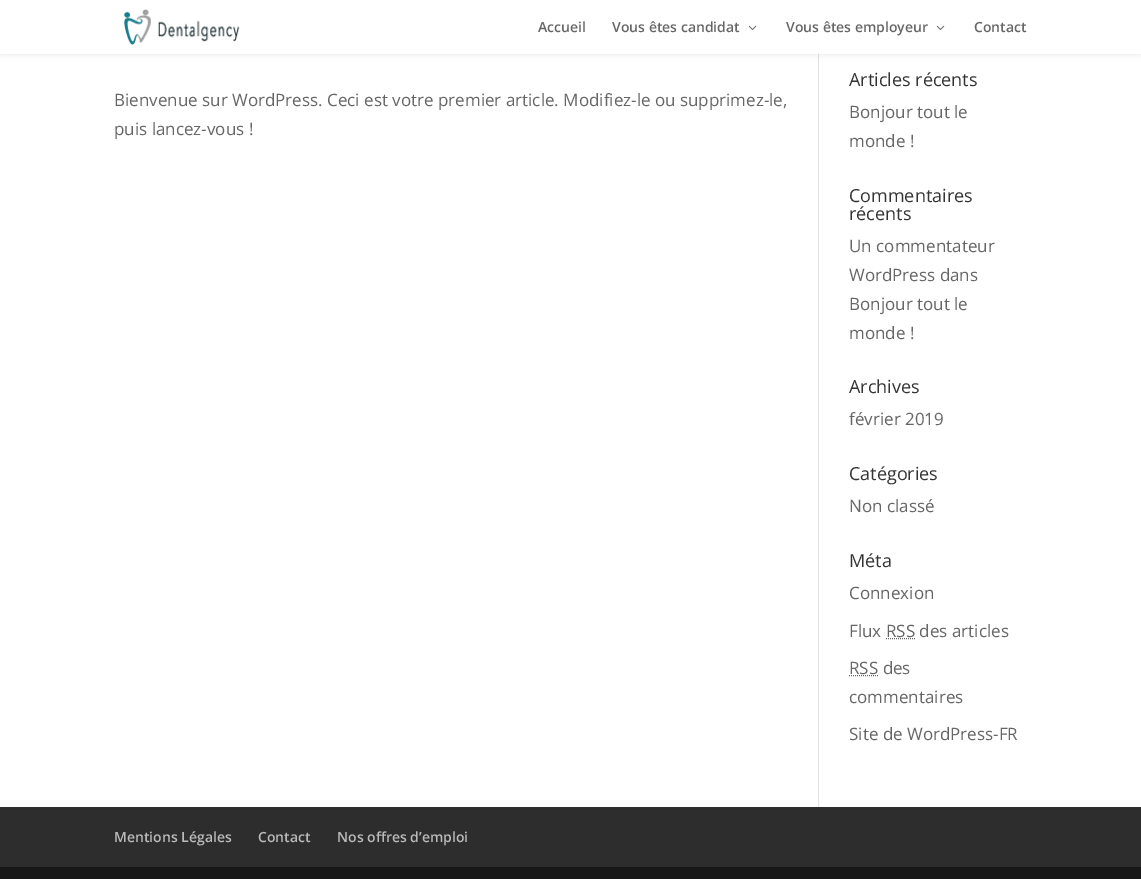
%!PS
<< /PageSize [1141 879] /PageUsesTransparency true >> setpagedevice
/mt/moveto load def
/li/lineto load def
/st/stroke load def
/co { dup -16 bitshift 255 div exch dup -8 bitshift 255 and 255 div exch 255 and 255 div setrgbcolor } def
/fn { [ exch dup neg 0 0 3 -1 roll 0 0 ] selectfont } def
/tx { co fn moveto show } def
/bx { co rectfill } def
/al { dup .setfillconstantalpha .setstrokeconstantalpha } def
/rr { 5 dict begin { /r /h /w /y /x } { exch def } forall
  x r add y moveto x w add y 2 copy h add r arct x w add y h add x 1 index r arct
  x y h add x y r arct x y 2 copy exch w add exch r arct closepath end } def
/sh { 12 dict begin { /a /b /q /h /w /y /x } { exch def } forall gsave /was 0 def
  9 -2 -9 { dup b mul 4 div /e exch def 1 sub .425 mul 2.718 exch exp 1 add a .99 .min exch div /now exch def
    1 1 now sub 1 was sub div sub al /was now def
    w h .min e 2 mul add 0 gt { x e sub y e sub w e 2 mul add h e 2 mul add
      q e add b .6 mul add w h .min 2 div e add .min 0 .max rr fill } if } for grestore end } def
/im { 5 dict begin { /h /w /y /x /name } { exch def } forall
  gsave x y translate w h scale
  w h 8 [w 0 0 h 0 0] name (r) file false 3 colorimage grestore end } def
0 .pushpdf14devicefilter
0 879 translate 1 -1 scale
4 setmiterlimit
0 0 1141 879 16#FFFFFF bx
818 54 1 753 16#E2E2E2 bx
16#000000 co
0 0 1141 54 0 3.5 .1 sh
0 0 1141 54 16#FFFFFF bx
(media/1.raw) 124 9 116 36 im
(media/2.raw) 748 25 9 5 im
(media/2.raw) 936 25 9 5 im
16#666666 co
[1 1] 0 setdash
886 638.5 mt 915 638.5 li st
849 675.5 mt 878.5 675.5 li st
0 807 1141 60 16#2D2D2D bx
0 867 1141 12 16#171717 bx
(Accueil) 538 32 /OpenSans-SemiBold 14 16#666666 tx
(Vous êtes candidat) 612 32 /OpenSans-SemiBold 14 16#666666 tx
(Vous êtes employeur) 786 32 /OpenSans-SemiBold 14 16#666666 tx
(Contact) 974 32 /OpenSans-SemiBold 14 16#666666 tx
(Bienvenue sur WordPress. Ceci est votre premier article. Modifiez-le ou supprimez-le,) 114 106 /OpenSans-Regular 17 16#666666 tx
(puis lancez-vous !) 114 135 /OpenSans-Regular 17 16#666666 tx
(Articles récents) 849 86 /OpenSans-Regular 18 16#333333 tx
(Bonjour tout le) 849 118 /OpenSans-Regular 17 16#666666 tx
(monde !) 849 147 /OpenSans-Regular 17 16#666666 tx
(Commentaires) 849 202 /OpenSans-Regular 18 16#333333 tx
(récents) 849 220 /OpenSans-Regular 18 16#333333 tx
(Un commentateur) 849 252 /OpenSans-Regular 17 16#666666 tx
(WordPress dans) 849 281 /OpenSans-Regular 17 16#666666 tx
(Bonjour tout le) 849 310 /OpenSans-Regular 17 16#666666 tx
(monde !) 849 339 /OpenSans-Regular 17 16#666666 tx
(Archives) 849 393 /OpenSans-Regular 18 16#333333 tx
(février 2019) 849 425 /OpenSans-Regular 17 16#666666 tx
(Catégories) 849 480 /OpenSans-Regular 18 16#333333 tx
(Non classé) 849 512 /OpenSans-Regular 17 16#666666 tx
(Méta) 849 567 /OpenSans-Regular 18 16#333333 tx
(Connexion) 849 599 /OpenSans-Regular 17 16#666666 tx
(Flux RSS des articles) 849 637 /OpenSans-Regular 17 16#666666 tx
(RSS des) 849 674 /OpenSans-Regular 17 16#666666 tx
(commentaires) 849 703 /OpenSans-Regular 17 16#666666 tx
(Site de WordPress-FR) 849 740 /OpenSans-Regular 17 16#666666 tx
(Mentions Légales) 114 842 /OpenSans-SemiBold 14 16#BBBBBB tx
(Contact) 258 842 /OpenSans-SemiBold 14 16#BBBBBB tx
(Nos offres d’emploi) 337 842 /OpenSans-SemiBold 14 16#BBBBBB tx
.poppdf14devicefilter showpage
